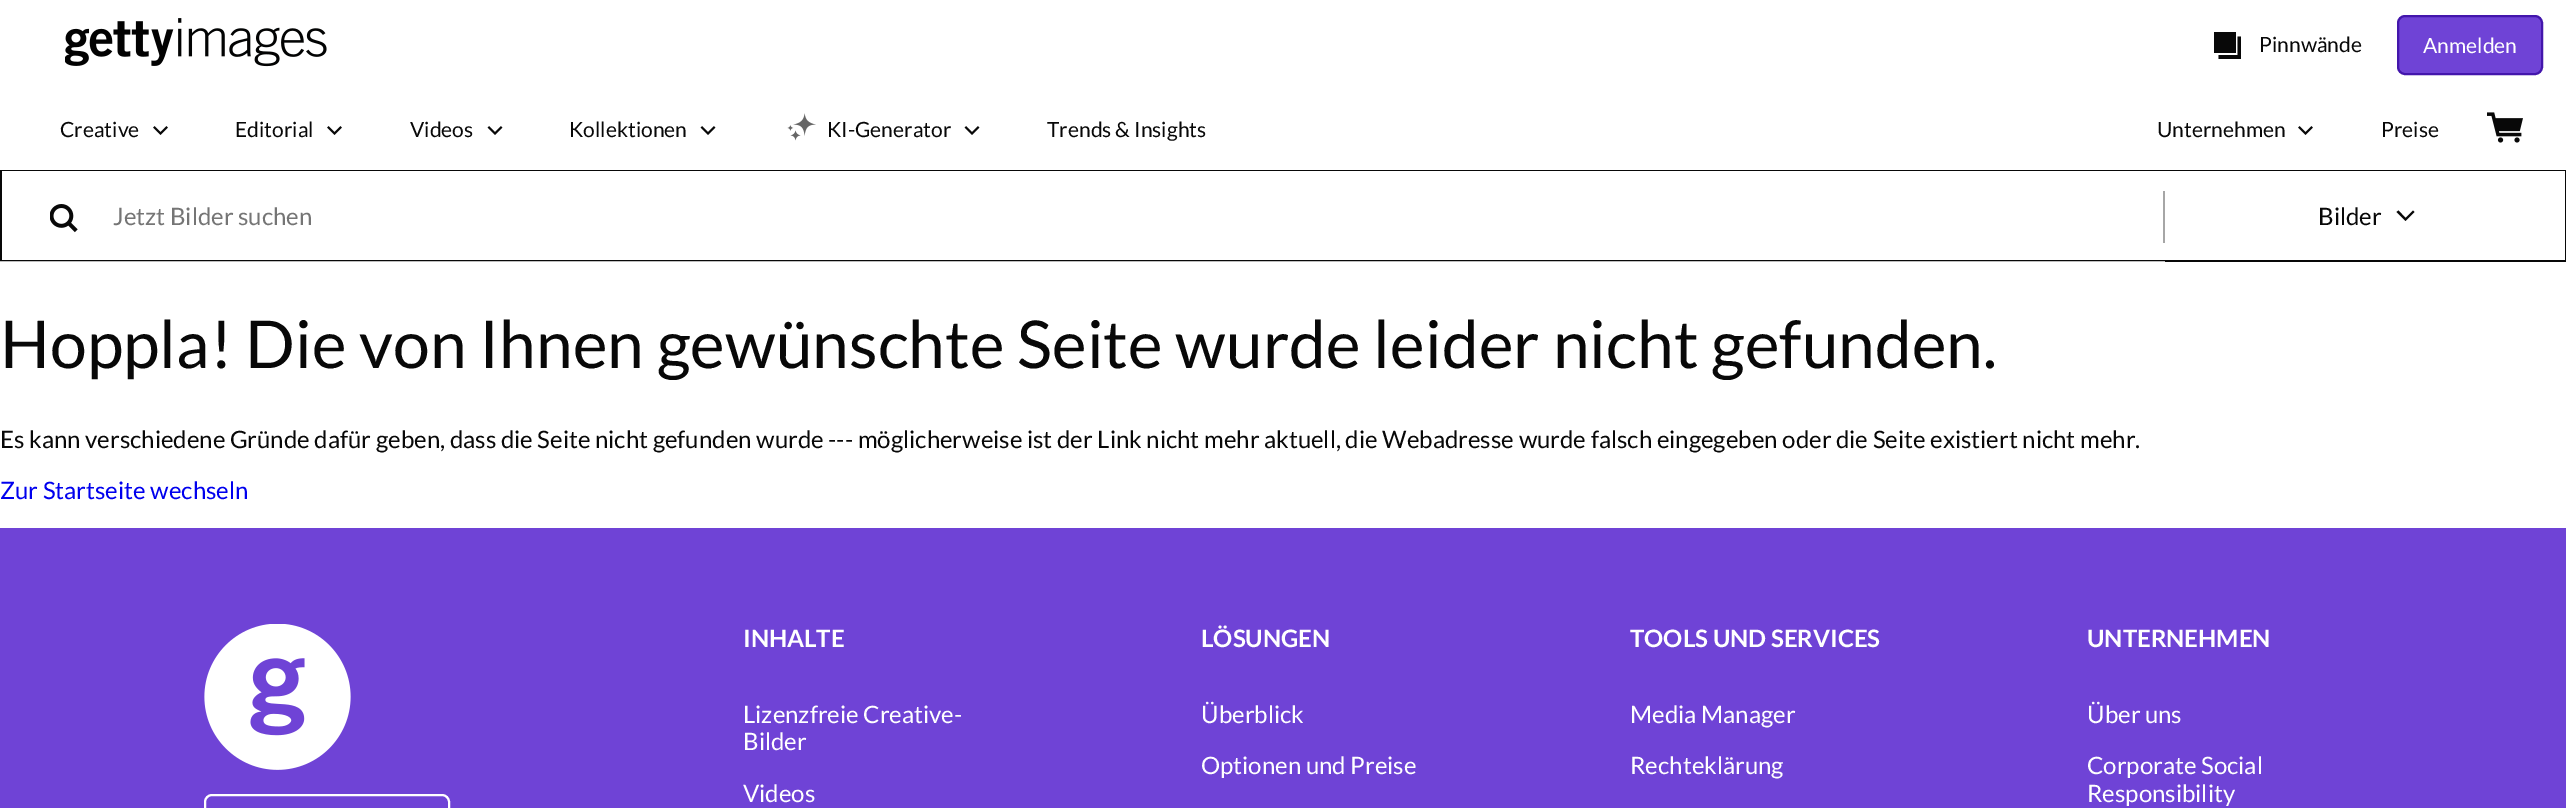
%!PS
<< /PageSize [2566 808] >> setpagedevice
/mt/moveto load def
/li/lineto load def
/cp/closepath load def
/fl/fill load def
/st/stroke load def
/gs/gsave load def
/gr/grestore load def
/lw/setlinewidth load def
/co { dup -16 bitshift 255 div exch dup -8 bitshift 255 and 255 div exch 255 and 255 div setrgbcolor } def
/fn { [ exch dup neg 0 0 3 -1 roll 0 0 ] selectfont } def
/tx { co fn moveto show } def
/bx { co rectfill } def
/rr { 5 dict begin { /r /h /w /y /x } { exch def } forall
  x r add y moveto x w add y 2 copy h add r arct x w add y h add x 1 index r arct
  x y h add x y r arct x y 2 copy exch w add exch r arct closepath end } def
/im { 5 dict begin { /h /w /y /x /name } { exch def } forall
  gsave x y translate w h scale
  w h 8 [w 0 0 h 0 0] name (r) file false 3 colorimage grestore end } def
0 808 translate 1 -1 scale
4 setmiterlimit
0 0 2566 808 16#FFFFFF bx
(media/1.raw) 65 18 262 49 im
2214 32 22 21 16#080808 bx
gs
2213 32 28 27 rectclip
2241.5 59 mt 2218.5 59 li 2218.5 55 li 2237.5 55 li 2237.5 36.5 li 2241.5 36.5 li cp fl
gr
16#6F43D6 co
2398 16 144 58 7 rr gs fl gr
16#4316AC co
2 lw
st
(media/2.raw) 153 126 15 9 im
(media/2.raw) 327 126 15 9 im
(media/3.raw) 487 126 16 9 im
(media/3.raw) 700 126 16 9 im
(media/4.raw) 787 113 29 28 im
(media/3.raw) 964 126 16 9 im
(media/2.raw) 2298 126 15 9 im
(media/5.raw) 2487 112 36 31 im
16#080808 co
1 171 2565 89 rectstroke
2 171 2563 89 16#FFFFFF bx
(media/6.raw) 50 204 28 29 im
2163 191 2 52 16#A6A6A6 bx
16#080808 co
2405.5 221 mt 2396.5 212 li 2398.5 210.5 li 2405.5 218 li 2413 210.5 li 2414.5 212 li cp fl
2165 261 401 1 16#080808 bx
0 528 2566 280 16#6F43D6 bx
(media/7.raw) 204 624 147 146 im
16#FFFFFF co
205 795 244 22 7 rr st
(Pinnwände) 2259 52 /Lato-Regular 21 16#080808 tx
(Anmelden) 2423 53 /Lato-Regular 21 16#FFFFFF tx
(Creative) 60 137 /Lato-Regular 21 16#080808 tx
(Editorial) 235 137 /Lato-Regular 21 16#080808 tx
(Videos) 410 137 /Lato-Regular 21 16#080808 tx
(Kollektionen) 569 137 /Lato-Regular 21 16#080808 tx
(KI-Generator) 827 137 /Lato-Regular 21 16#080808 tx
(Trends & Insights) 1047 137 /Lato-Regular 21 16#080808 tx
(Unternehmen) 2157 137 /Lato-Regular 21 16#080808 tx
(Preise) 2381 137 /Lato-Regular 21 16#080808 tx
(Jetzt Bilder suchen) 113 225 /Lato-Regular 24 16#757575 tx
(Bilder) 2318 225 /Lato-Regular 24 16#080808 tx
(Hoppla! Die von Ihnen gewünschte Seite wurde leider nicht gefunden.) 0 368 /Lato-Regular 66 16#080808 tx
(Es kann verschiedene Gründe dafür geben, dass die Seite nicht gefunden wurde --- möglicherweise ist der Link nicht mehr aktuell, die Webadresse wurde falsch eingegeben oder die Seite existiert nicht mehr.) 0 448 /Lato-Regular 24 16#080808 tx
(Zur Startseite wechseln) 0 499 /Lato-Regular 24 16#0000EE tx
(INHALTE) 743 647 /Lato-Bold 24 16#FFFFFF tx
(Lizenzfreie Creative-) 743 723 /Lato-Regular 24 16#FFFFFF tx
(Bilder) 743 750 /Lato-Regular 24 16#FFFFFF tx
(Videos) 743 802 /Lato-Regular 24 16#FFFFFF tx
(LÖSUNGEN) 1201 647 /Lato-Bold 24 16#FFFFFF tx
(Überblick) 1201 723 /Lato-Regular 24 16#FFFFFF tx
(Optionen und Preise) 1201 774 /Lato-Regular 24 16#FFFFFF tx
(TOOLS UND SERVICES) 1630 647 /Lato-Bold 24 16#FFFFFF tx
(Media Manager) 1630 723 /Lato-Regular 24 16#FFFFFF tx
(Rechteklärung) 1630 774 /Lato-Regular 24 16#FFFFFF tx
(UNTERNEHMEN) 2087 647 /Lato-Bold 24 16#FFFFFF tx
(Über uns) 2087 723 /Lato-Regular 24 16#FFFFFF tx
(Corporate Social) 2087 774 /Lato-Regular 24 16#FFFFFF tx
(Responsibility) 2087 802 /Lato-Regular 24 16#FFFFFF tx
showpage
